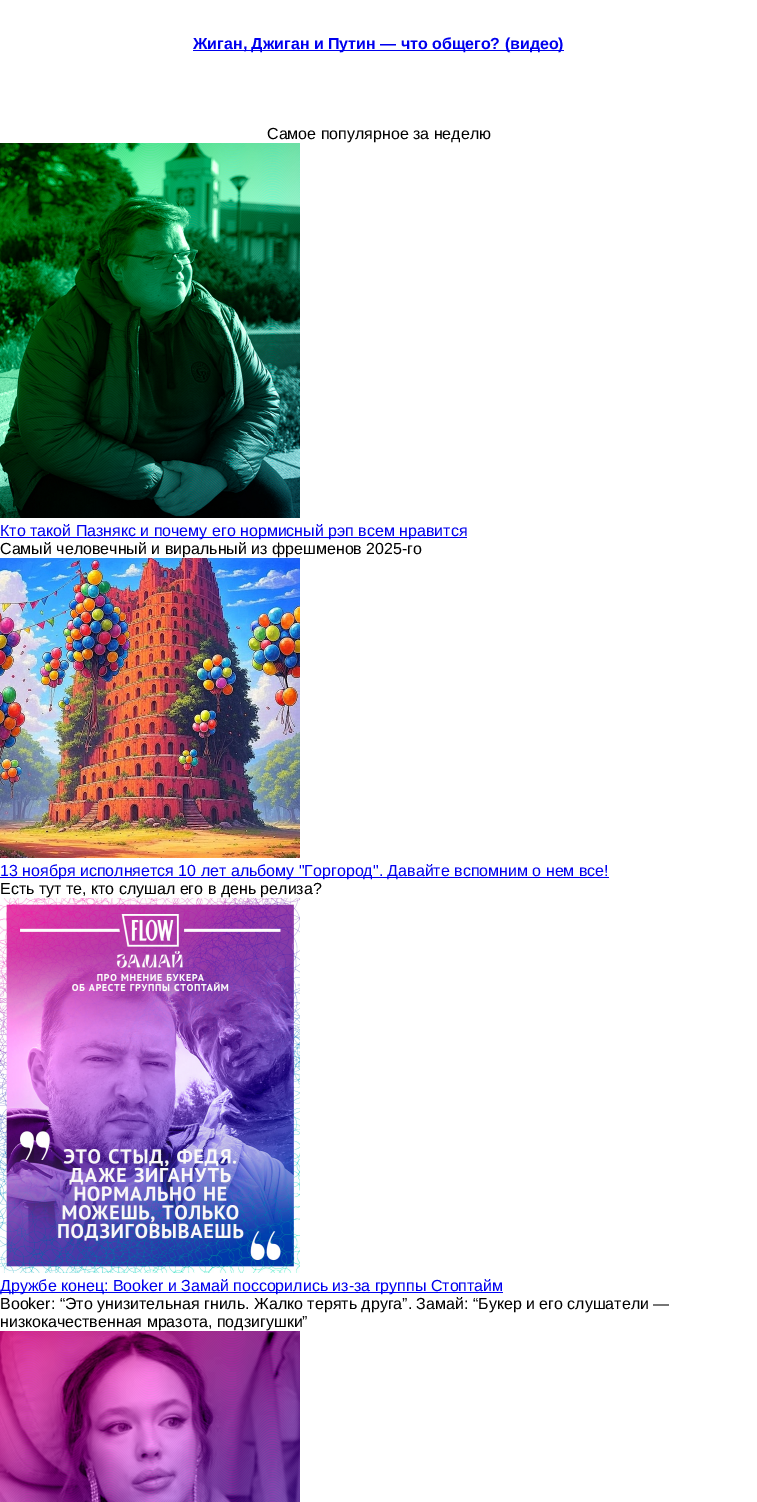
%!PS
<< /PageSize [757 1502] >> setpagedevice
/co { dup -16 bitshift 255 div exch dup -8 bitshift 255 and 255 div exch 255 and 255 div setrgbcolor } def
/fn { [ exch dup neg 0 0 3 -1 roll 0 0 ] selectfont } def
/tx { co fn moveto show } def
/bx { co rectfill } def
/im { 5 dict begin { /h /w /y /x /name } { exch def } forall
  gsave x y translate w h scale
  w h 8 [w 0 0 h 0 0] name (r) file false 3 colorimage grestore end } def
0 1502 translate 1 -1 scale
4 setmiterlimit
0 0 757 1502 16#FFFFFF bx
193 50 371 1 16#0000EE bx
(media/1.raw) 0 143 300 375 im
0 537 467 1 16#0000EE bx
(media/2.raw) 0 558 300 300 im
0 877 609 1 16#0000EE bx
(media/3.raw) 0 898 300 375 im
0 1292 503 1 16#0000EE bx
(media/4.raw) 0 1331 300 171 im
(Жиган, Джиган и Путин — что общего? \(видео\)) 193 49 /LiberationSans-Bold 16 16#0000EE tx
(Самое популярное за неделю) 267 139 /LiberationSans-Regular 16 16#000000 tx
(Кто такой Пазнякс и почему его нормисный рэп всем нравится) 0 536 /LiberationSans-Regular 16 16#0000EE tx
(Самый человечный и виральный из фрешменов 2025-го) 0 554 /LiberationSans-Regular 16 16#000000 tx
(13 ноября исполняется 10 лет альбому "Горгород". Давайте вспомним о нем все!) 0 876 /LiberationSans-Regular 16 16#0000EE tx
(Есть тут те, кто слушал его в день релиза?) 0 894 /LiberationSans-Regular 16 16#000000 tx
(Дружбе конец: Booker и Замай поссорились из-за группы Стоптайм) 0 1291 /LiberationSans-Regular 16 16#0000EE tx
(Booker: “Это унизительная гниль. Жалко терять друга”. Замай: “Букер и его слушатели —) 0 1309 /LiberationSans-Regular 16 16#000000 tx
(низкокачественная мразота, подзигушки”) 0 1327 /LiberationSans-Regular 16 16#000000 tx
showpage
